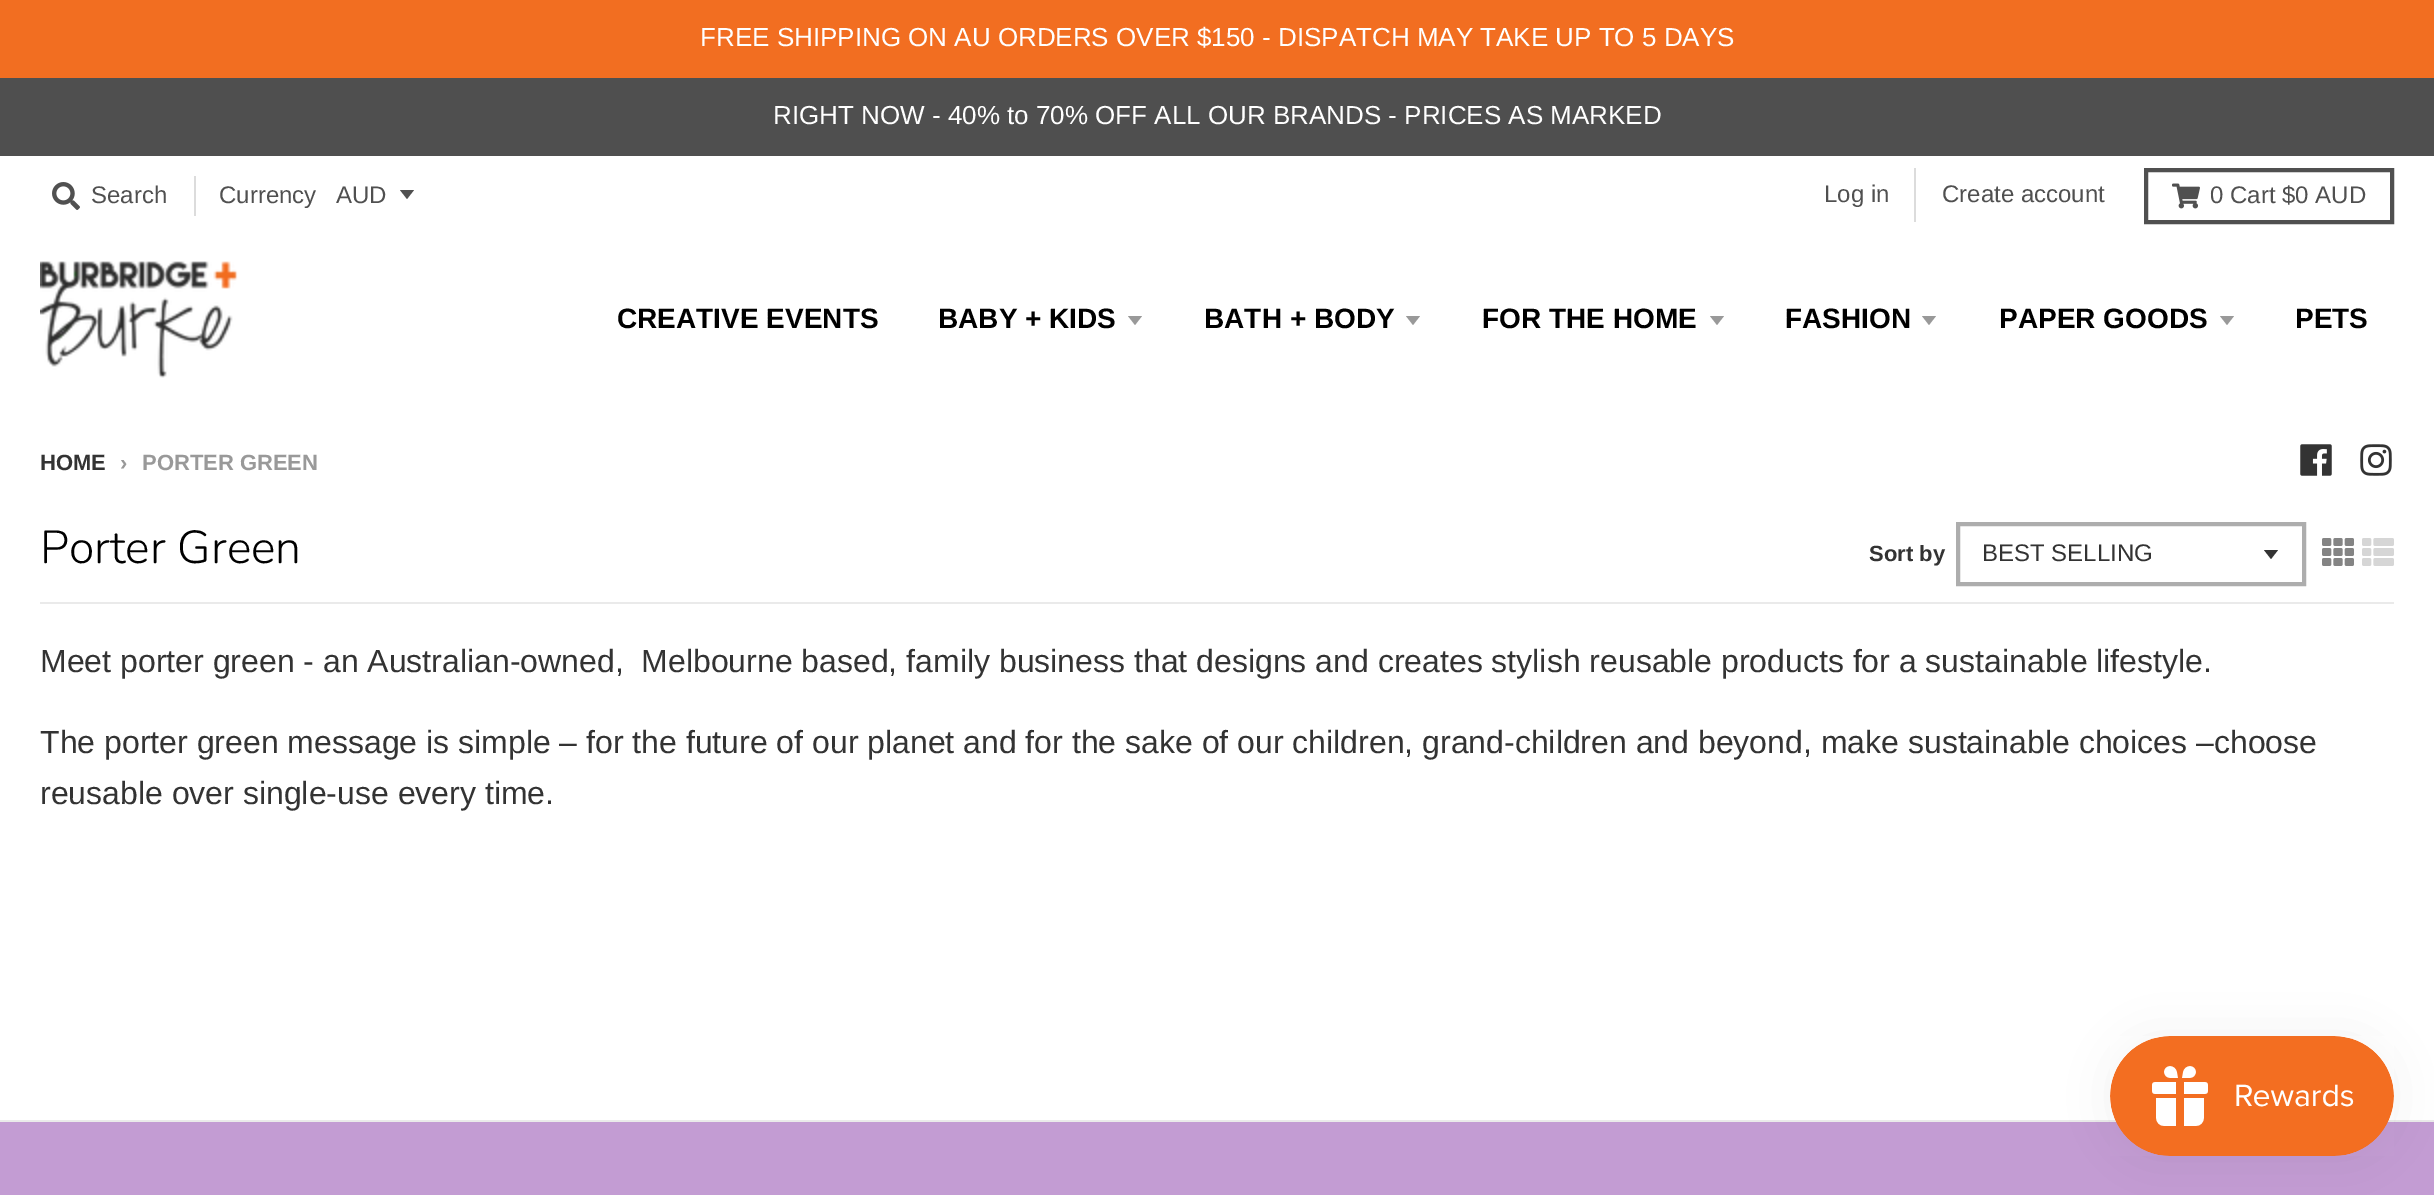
%!PS
<< /PageSize [2434 1195] /PageUsesTransparency true >> setpagedevice
/mt/moveto load def
/li/lineto load def
/cp/closepath load def
/fl/fill load def
/lw/setlinewidth load def
/co { dup -16 bitshift 255 div exch dup -8 bitshift 255 and 255 div exch 255 and 255 div setrgbcolor } def
/fn { [ exch dup neg 0 0 3 -1 roll 0 0 ] selectfont } def
/tx { co fn moveto show } def
/bx { co rectfill } def
/al { dup .setfillconstantalpha .setstrokeconstantalpha } def
/rr { 5 dict begin { /r /h /w /y /x } { exch def } forall
  x r add y moveto x w add y 2 copy h add r arct x w add y h add x 1 index r arct
  x y h add x y r arct x y 2 copy exch w add exch r arct closepath end } def
/sh { 12 dict begin { /a /b /q /h /w /y /x } { exch def } forall gsave /was 0 def
  9 -2 -9 { dup b mul 4 div /e exch def 1 sub .425 mul 2.718 exch exp 1 add a .99 .min exch div /now exch def
    1 1 now sub 1 was sub div sub al /was now def
    w h .min e 2 mul add 0 gt { x e sub y e sub w e 2 mul add h e 2 mul add
      q e add b .6 mul add w h .min 2 div e add .min 0 .max rr fill } if } for grestore end } def
/im { 5 dict begin { /h /w /y /x /name } { exch def } forall
  gsave x y translate w h scale
  w h 8 [w 0 0 h 0 0] name (r) file false 3 colorimage grestore end } def
0 .pushpdf14devicefilter
0 1195 translate 1 -1 scale
4 setmiterlimit
0 0 2434 1195 16#FFFFFF bx
0 0 2434 78 16#F26E21 bx
0 78 2434 78 16#4F4F4F bx
(media/1.raw) 52 182 28 28 im
194 176 2 40 16#DCDCDC bx
16#505050 co
400 190 mt 407 199 li 414 190 li cp fl
1914 168 2 54 16#DCDCDC bx
16#505050 co
4 lw
2146 170 246 52 rectstroke
(media/2.raw) 2172 183 28 26 im
(media/3.raw) 40 261 198 117 im
16#999999 co
1128 316 mt 1135 325 li 1142 316 li cp fl
1406 316 mt 1413 325 li 1420 316 li cp fl
1710 316 mt 1717 325 li 1724 316 li cp fl
1922 316 mt 1929 325 li 1936 316 li cp fl
2220 316 mt 2227 325 li 2234 316 li cp fl
0 1120 2434 2 16#EAEAEA bx
(media/4.raw) 2300 444 32 32 im
(media/5.raw) 2360 444 32 32 im
40 602 2354 2 16#EAEAEA bx
16#333333 co
2264 550 mt 2271 559 li 2278 550 li cp fl
16#ADADAD co
1958 524 346 60 rectstroke
(media/6.raw) 2322 538 32 28 im
(media/7.raw) 2362 538 32 28 im
0 1122 2434 73 16#C39CD3 bx
16#000000 co
2110 1036 284 120 60 25 .05 sh
(media/8.raw) 2110 1036 284 120 im
(FREE SHIPPING ON AU ORDERS OVER $150 - DISPATCH MAY TAKE UP TO 5 DAYS) 700 46 /Arimo-Regular 26 16#FFFFFF tx
(RIGHT NOW - 40% to 70% OFF ALL OUR BRANDS - PRICES AS MARKED) 773 124 /Arimo-Regular 26 16#FFFFFF tx
(Search) 91 203 /Arimo-Regular 24 16#505050 tx
(Currency) 219 203 /Arimo-Regular 24 16#505050 tx
(AUD) 336 203 /Arimo-Regular 24 16#505050 tx
(Log in) 1824 202 /Arimo-Regular 24 16#505050 tx
(Create account) 1942 202 /Arimo-Regular 24 16#505050 tx
(0 Cart $0 AUD) 2210 203 /Arimo-Regular 24 16#505050 tx
(CREATIVE EVENTS) 617 328 /Arimo-Bold 28 16#000000 tx
(BABY + KIDS) 938 328 /Arimo-Bold 28 16#000000 tx
(BATH + BODY) 1204 328 /Arimo-Bold 28 16#000000 tx
(FOR THE HOME) 1482 328 /Arimo-Bold 28 16#000000 tx
(FASHION) 1785 328 /Arimo-Bold 28 16#000000 tx
(PAPER GOODS) 1999 328 /Arimo-Bold 28 16#000000 tx
(PETS) 2295 328 /Arimo-Bold 28 16#000000 tx
(HOME) 40 470 /Arimo-Bold 22 16#333333 tx
(›) 120 470 /Arimo-Bold 22 16#999999 tx
(PORTER GREEN) 142 470 /Arimo-Bold 22 16#999999 tx
(Porter Green) 40 563 /Nunito-Light 46.25 16#000000 tx
(Sort by) 1869 561 /Arimo-Bold 22 16#333333 tx
(BEST SELLING) 1982 561 /Arimo-Regular 24 16#333333 tx
(Meet porter green - an Australian-owned,  Melbourne based, family business that designs and creates stylish reusable products for a sustainable lifestyle.) 40 672 /Arimo-Regular 32 16#333333 tx
(The porter green message is simple – for the future of our planet and for the sake of our children, grand-children and beyond, make sustainable choices –choose) 40 753 /Arimo-Regular 32 16#333333 tx
(reusable over single-use every time.) 40 804 /Arimo-Regular 32 16#333333 tx
.poppdf14devicefilter showpage
